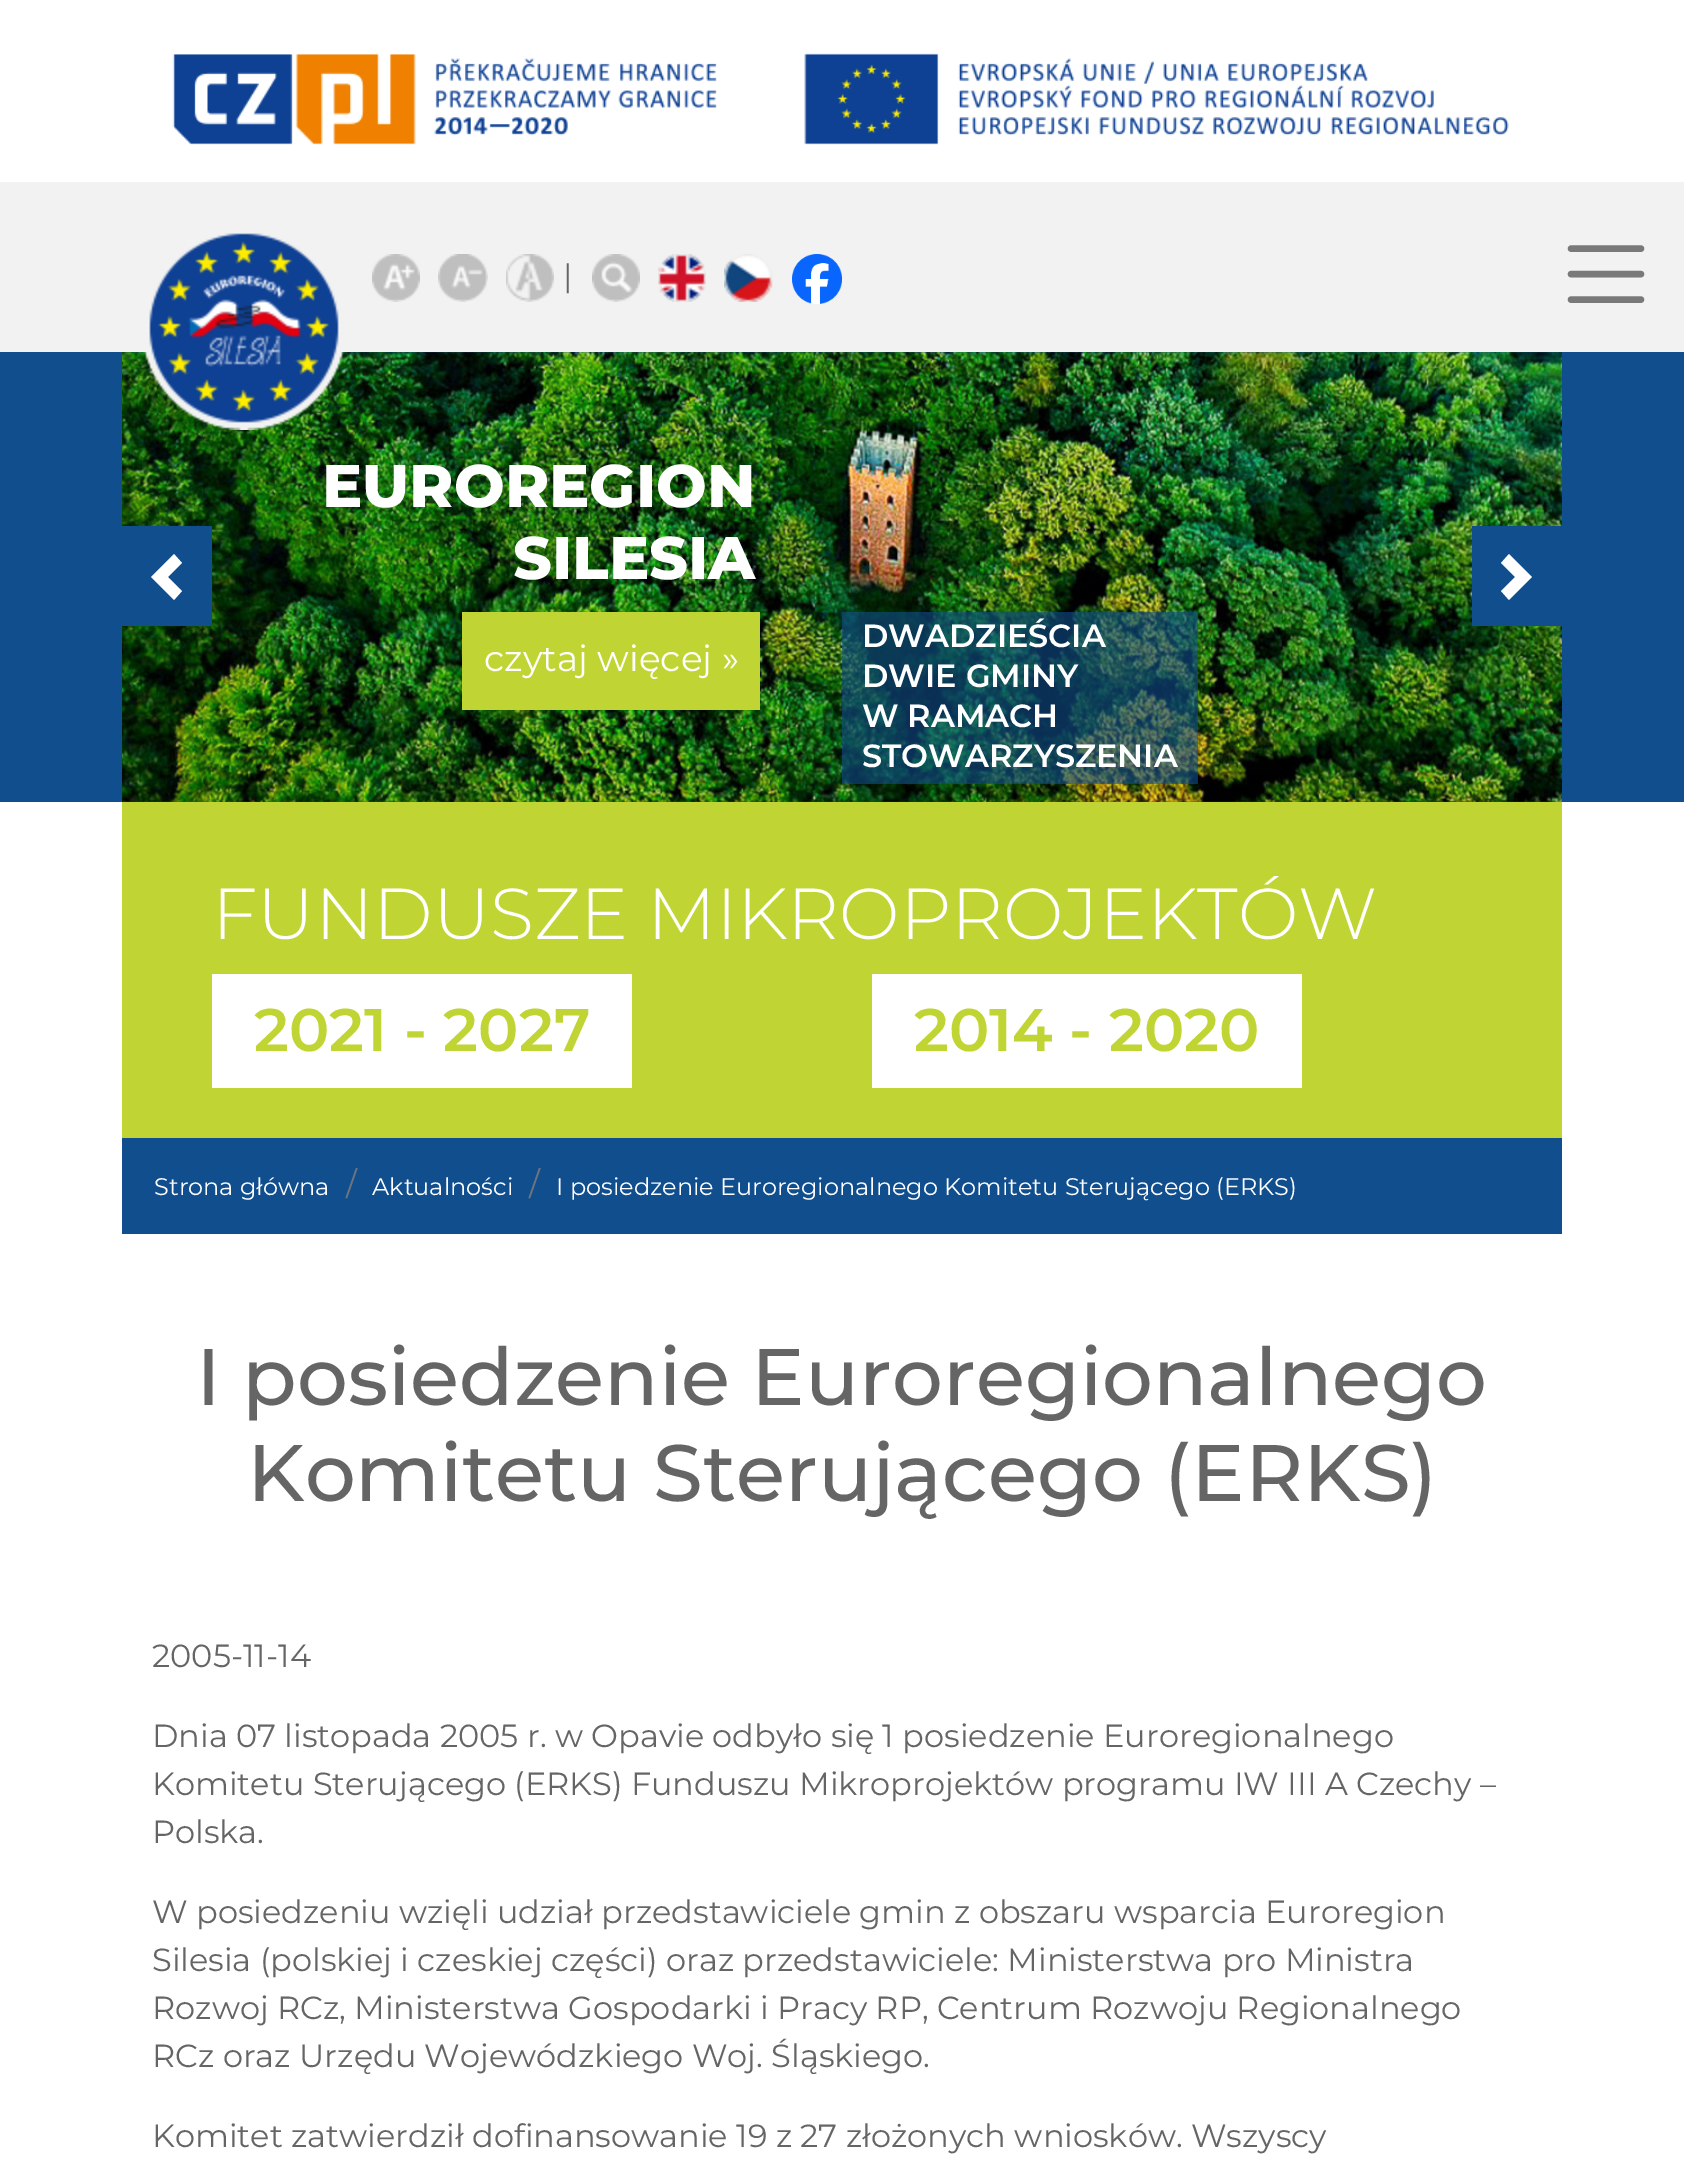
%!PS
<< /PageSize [1684 2165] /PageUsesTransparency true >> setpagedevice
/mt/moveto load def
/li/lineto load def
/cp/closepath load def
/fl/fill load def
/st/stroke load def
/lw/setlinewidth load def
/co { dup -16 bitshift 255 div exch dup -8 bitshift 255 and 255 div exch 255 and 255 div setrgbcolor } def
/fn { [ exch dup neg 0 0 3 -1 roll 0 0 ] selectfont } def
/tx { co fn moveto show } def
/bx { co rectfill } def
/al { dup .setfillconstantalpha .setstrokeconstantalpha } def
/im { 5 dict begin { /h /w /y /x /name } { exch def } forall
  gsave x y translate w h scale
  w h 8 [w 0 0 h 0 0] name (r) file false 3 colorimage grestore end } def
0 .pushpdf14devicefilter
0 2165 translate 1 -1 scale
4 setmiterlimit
0 0 1684 2165 16#FFFFFF bx
(media/1.raw) 172 53 1337 92 im
0 182 1684 170 16#F2F2F2 bx
0 352 1684 450 16#104E8D bx
(media/10.raw) 122 352 1440 450 im
(media/2.raw) 143 233 202 197 im
(media/3.raw) 372 254 48 48 im
(media/4.raw) 438 254 50 48 im
(media/5.raw) 506 254 48 48 im
(media/6.raw) 592 254 48 48 im
(media/7.raw) 658 254 48 48 im
(media/8.raw) 724 254 49 48 im
(media/9.raw) 792 254 50 50 im
16#797979 co
6.4 lw
1 setlinecap
1571 248.5 mt 1641 248.5 li 1571 274 mt 1641 274 li 1571 299.5 mt 1641 299.5 li st
122 526 90 100 16#104E8D bx
16#FFFFFF co
174 554 mt 151 577 li 174 600 li 182 591 li 168 577 li 182 563 li cp fl
462 612 298 98 16#C0D534 bx
0.6 al
842 612 356 172 16#104E8D bx
1 al
1472 526 90 100 16#104E8D bx
16#FFFFFF co
1509 554 mt 1501 563 li 1515 577 li 1501 591 li 1509 600 li 1532 577 li cp fl
122 802 1440 336 16#C0D534 bx
212 974 420 114 16#FFFFFF bx
872 974 430 114 16#FFFFFF bx
122 1138 1440 96 16#104E8D bx
(|) 563 287 /Montserrat-Regular 32 16#656565 tx
(EUROREGION) 322 507 /Montserrat-ExtraBold 60 16#FFFFFF tx
(SILESIA) 513 579 /Montserrat-ExtraBold 60 16#FFFFFF tx
(czytaj więcej ») 484 671 /Montserrat-Regular 36 16#FFFFFF tx
(DWADZIEŚCIA) 862 647 /Montserrat-SemiBold 32 16#FFFFFF tx
(DWIE GMINY) 862 687 /Montserrat-SemiBold 32 16#FFFFFF tx
(W RAMACH) 862 727 /Montserrat-SemiBold 32 16#FFFFFF tx
(STOWARZYSZENIA) 862 767 /Montserrat-SemiBold 32 16#FFFFFF tx
(FUNDUSZE MIKROPROJEKTÓW) 212 939 /Montserrat-Light 72 16#FFFFFF tx
(2021 - 2027) 254 1051 /Montserrat-SemiBold 60 16#C0D534 tx
(2014 - 2020) 914 1051 /Montserrat-SemiBold 60 16#C0D534 tx
(Strona główna) 154 1195 /Montserrat-Regular 24 16#FFFFFF tx
(/) 346 1195 /Montserrat-Regular 32 16#6C757D tx
(Aktualności) 372 1195 /Montserrat-Regular 24 16#FFFFFF tx
(/) 529 1195 /Montserrat-Regular 32 16#6C757D tx
(I posiedzenie Euroregionalnego Komitetu Sterującego \(ERKS\)) 556 1195 /Montserrat-Regular 24 16#FFFFFF tx
(I posiedzenie Euroregionalnego) 196 1405 /Montserrat-Medium 80 16#656565 tx
(Komitetu Sterującego \(ERKS\)) 247 1501 /Montserrat-Medium 80 16#656565 tx
(2005-11-14) 152 1667 /Montserrat-Regular 32 16#656565 tx
(Dnia 07 listopada 2005 r. w Opavie odbyło się 1 posiedzenie Euroregionalnego) 152 1747 /Montserrat-Regular 32 16#656565 tx
(Komitetu Sterującego \(ERKS\) Funduszu Mikroprojektów programu IW III A Czechy –) 152 1795 /Montserrat-Regular 32 16#656565 tx
(Polska.) 152 1843 /Montserrat-Regular 32 16#656565 tx
(W posiedzeniu wzięli udział przedstawiciele gmin z obszaru wsparcia Euroregion) 152 1923 /Montserrat-Regular 32 16#656565 tx
(Silesia \(polskiej i czeskiej części\) oraz przedstawiciele: Ministerstwa pro Ministra) 152 1971 /Montserrat-Regular 32 16#656565 tx
(Rozwoj RCz, Ministerstwa Gospodarki i Pracy RP, Centrum Rozwoju Regionalnego) 152 2019 /Montserrat-Regular 32 16#656565 tx
(RCz oraz Urzędu Wojewódzkiego Woj. Śląskiego.) 152 2067 /Montserrat-Regular 32 16#656565 tx
(Komitet zatwierdził dofinansowanie 19 z 27 złożonych wniosków. Wszyscy) 152 2147 /Montserrat-Regular 32 16#656565 tx
.poppdf14devicefilter showpage
